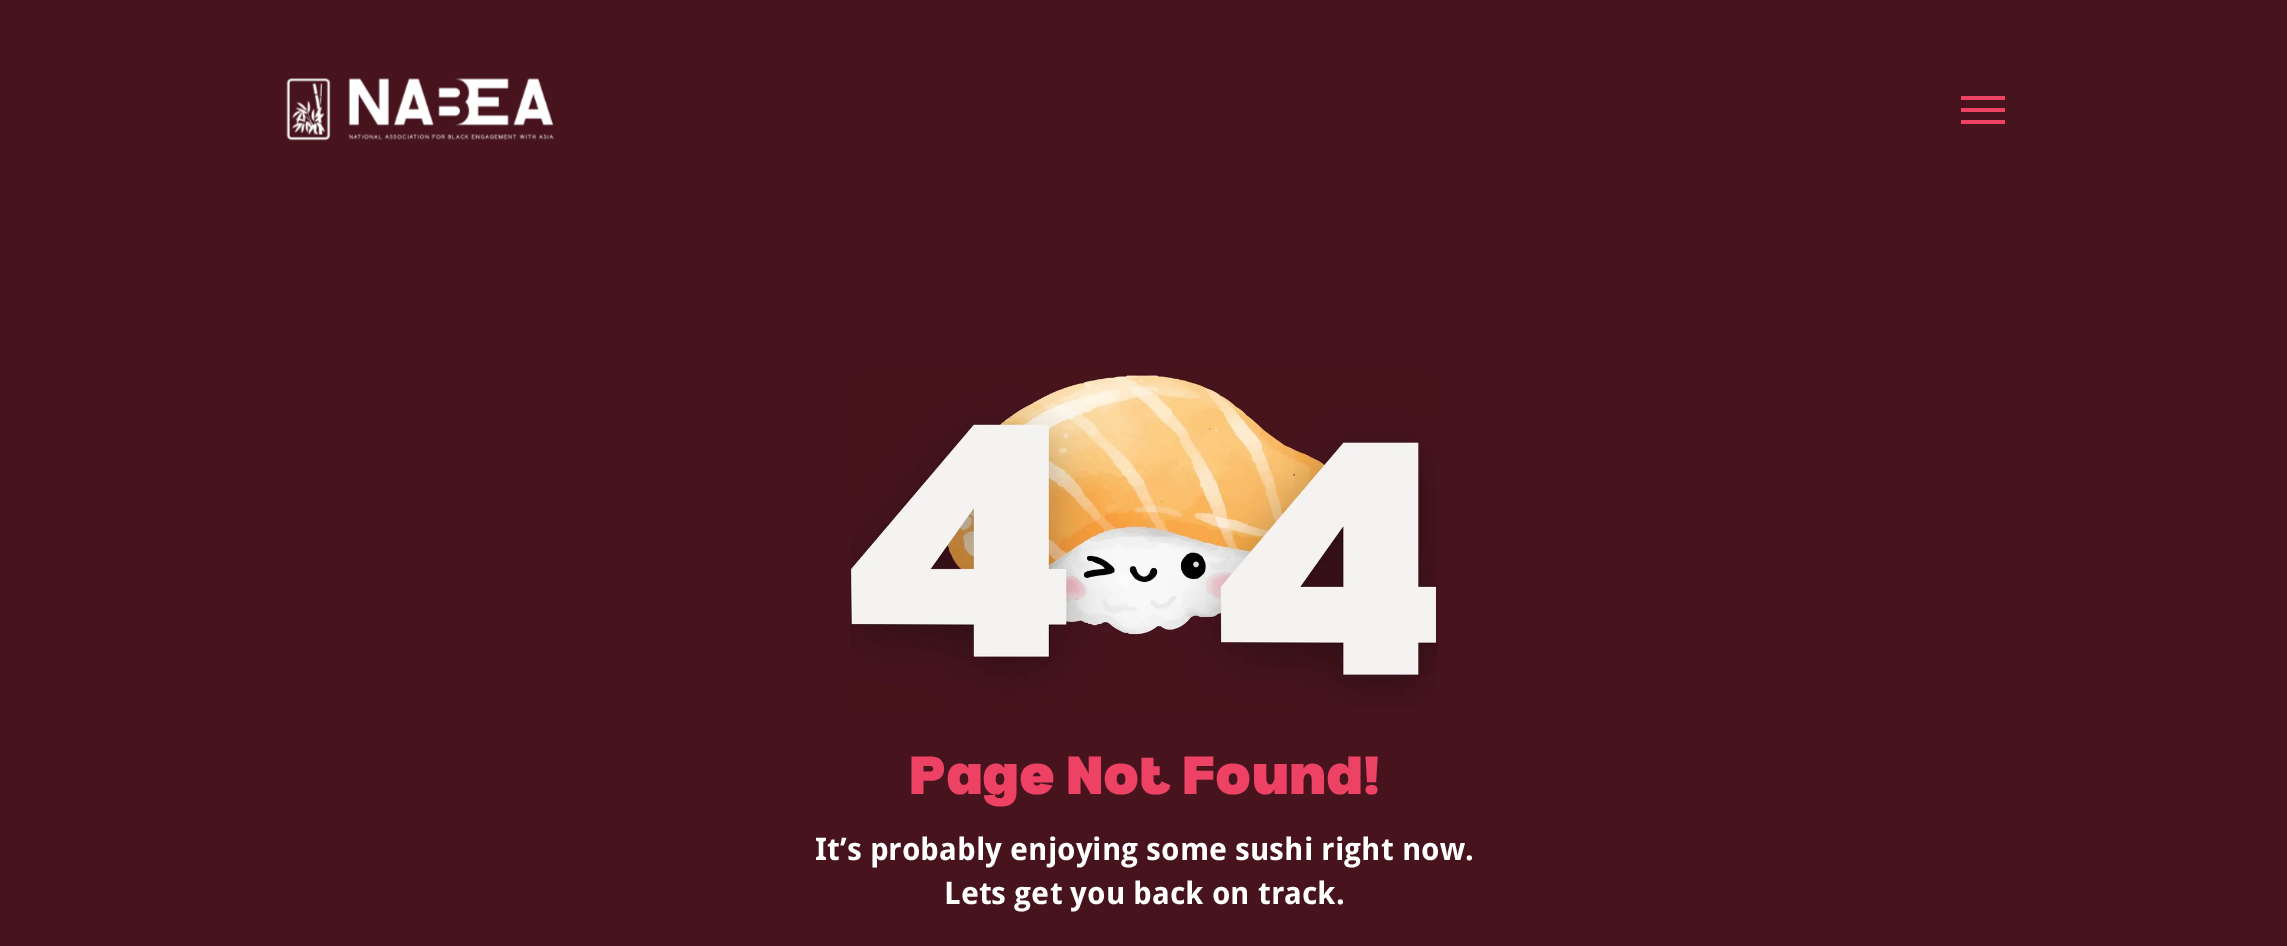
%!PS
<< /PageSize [2287 946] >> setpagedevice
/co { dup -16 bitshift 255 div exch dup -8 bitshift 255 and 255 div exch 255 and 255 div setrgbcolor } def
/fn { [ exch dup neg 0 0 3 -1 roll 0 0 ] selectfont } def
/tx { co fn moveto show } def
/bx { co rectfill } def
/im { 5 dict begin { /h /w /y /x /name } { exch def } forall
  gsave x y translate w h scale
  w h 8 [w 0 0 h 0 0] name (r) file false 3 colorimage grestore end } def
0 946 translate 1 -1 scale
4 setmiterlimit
0 0 2287 946 16#47141E bx
(media/1.raw) 286 78 268 63 im
1961 96 44 4 16#ED4264 bx
1961 108 44 4 16#ED4264 bx
1961 120 44 4 16#ED4264 bx
(media/2.raw) 850 373 588 335 im
(Page Not Found!) 909 794 /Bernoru-Medium 75 16#ED4264 tx
(It’s probably enjoying some sushi right now.) 815 860 /DroidSans-Bold 31 16#FFFFFF tx
(Lets get you back on track.) 944 904 /DroidSans-Bold 31 16#FFFFFF tx
showpage
